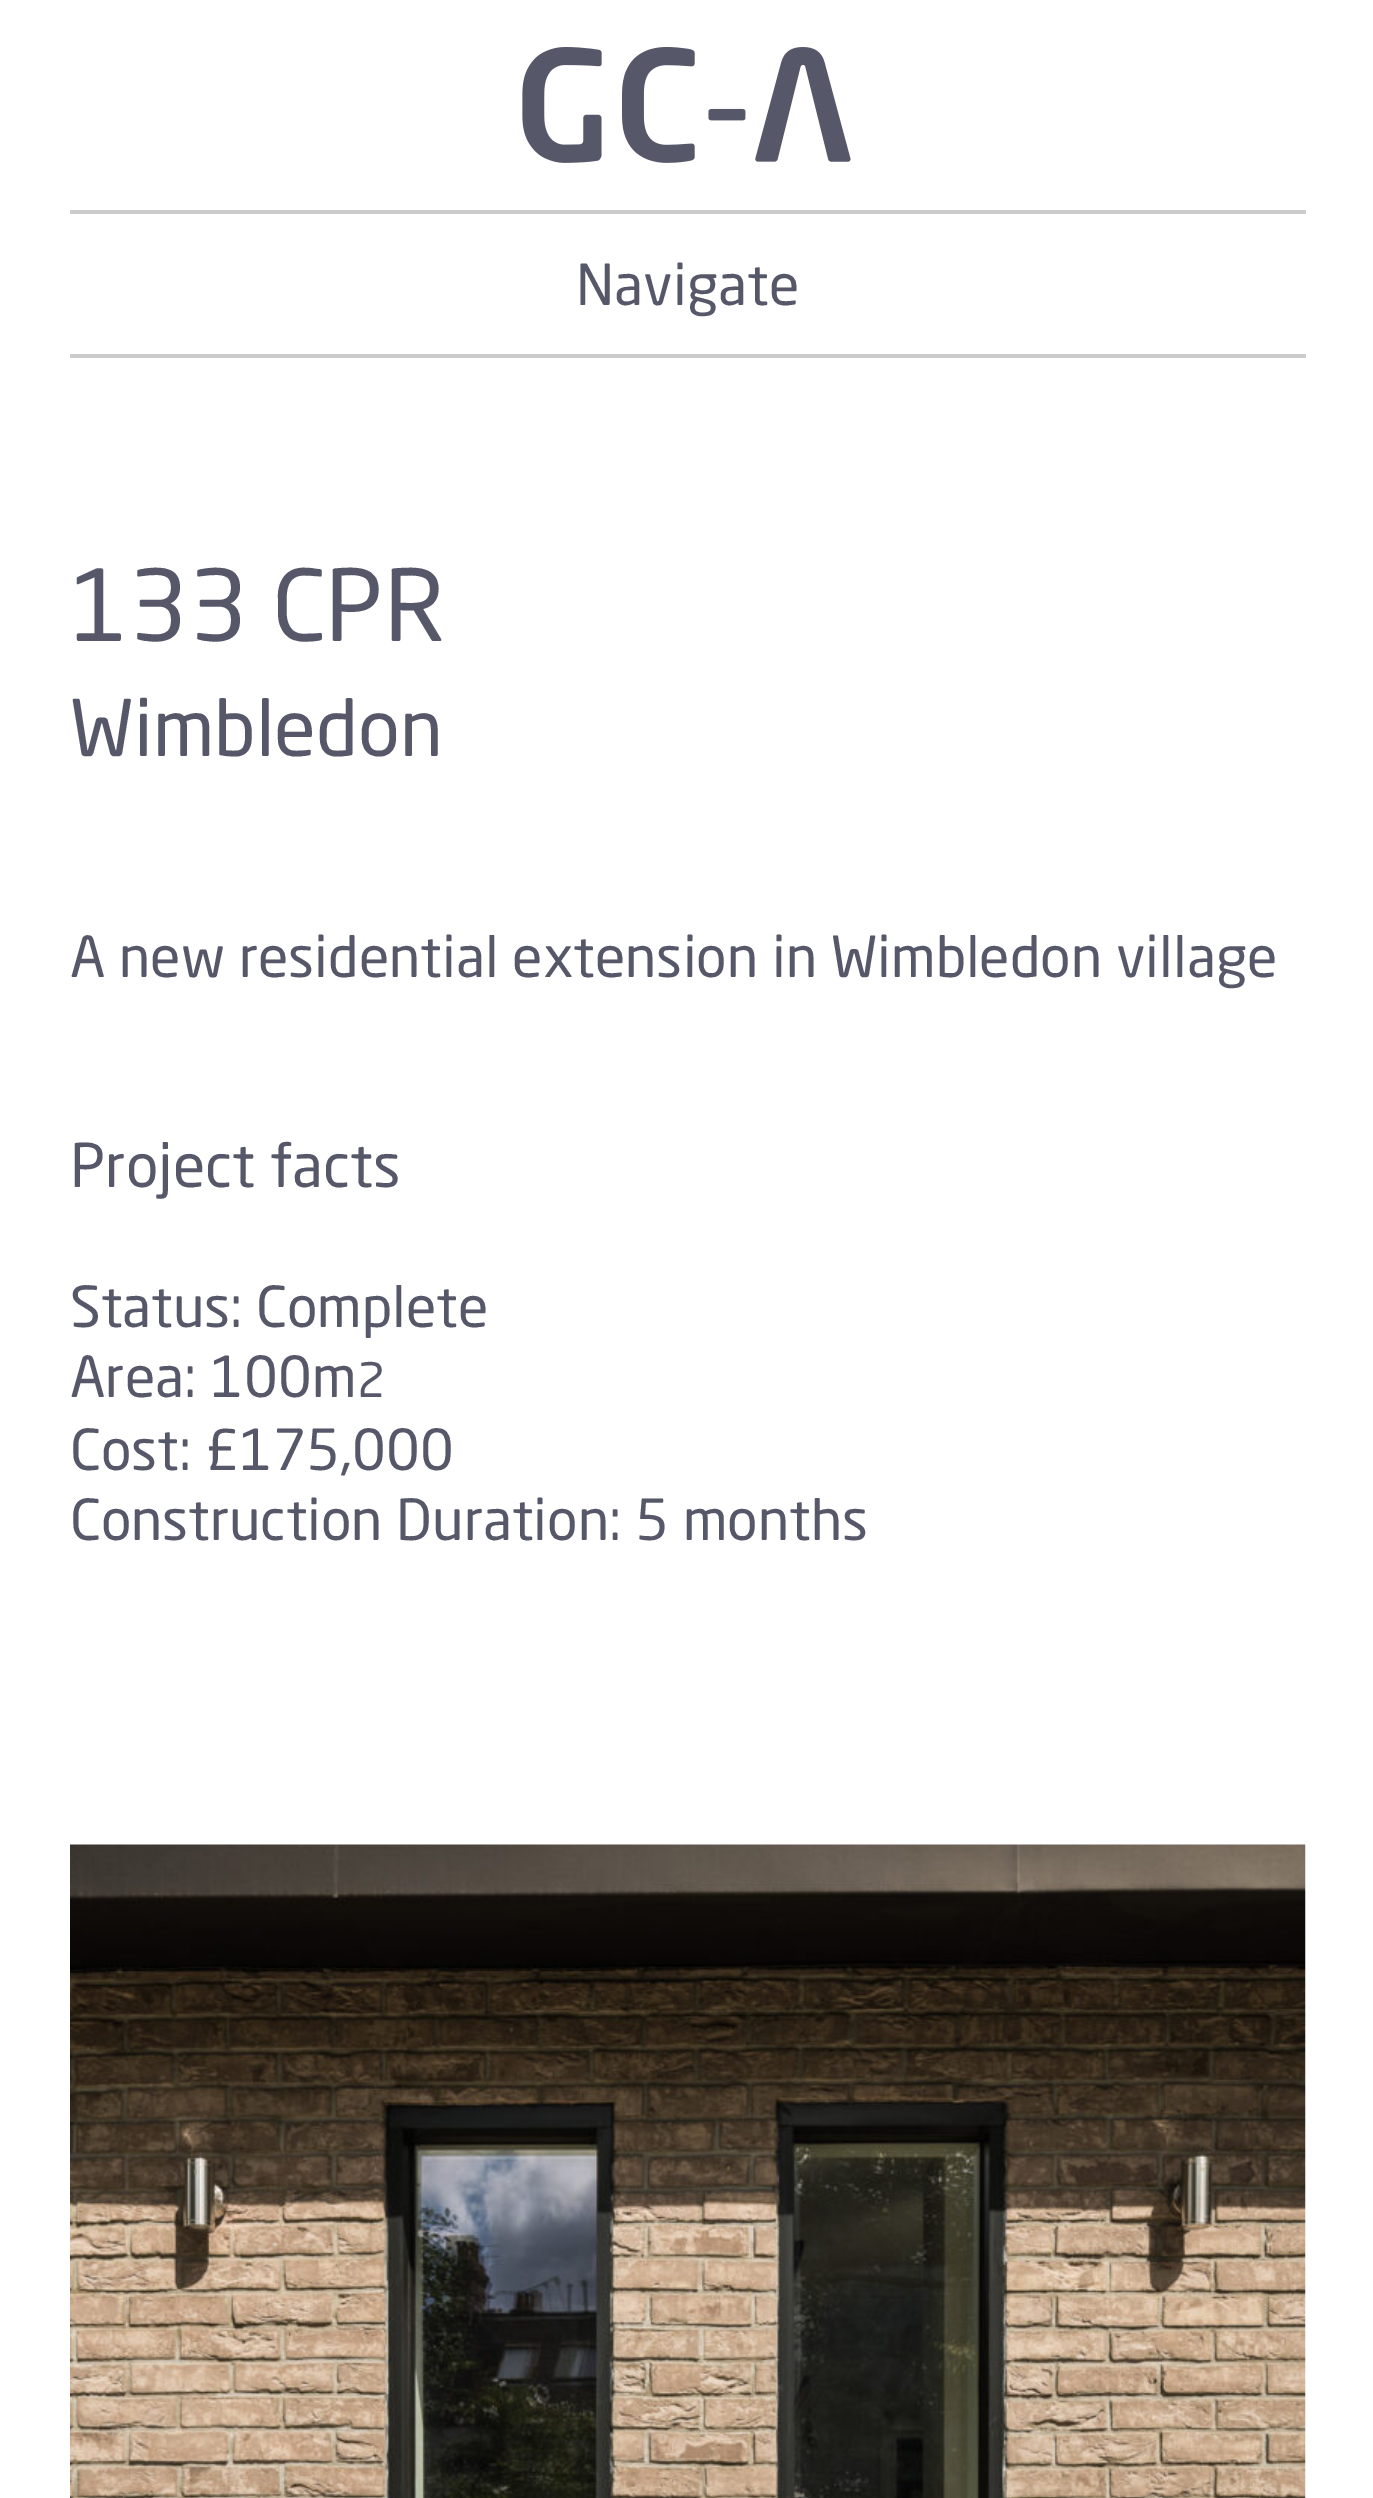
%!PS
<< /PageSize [1373 2498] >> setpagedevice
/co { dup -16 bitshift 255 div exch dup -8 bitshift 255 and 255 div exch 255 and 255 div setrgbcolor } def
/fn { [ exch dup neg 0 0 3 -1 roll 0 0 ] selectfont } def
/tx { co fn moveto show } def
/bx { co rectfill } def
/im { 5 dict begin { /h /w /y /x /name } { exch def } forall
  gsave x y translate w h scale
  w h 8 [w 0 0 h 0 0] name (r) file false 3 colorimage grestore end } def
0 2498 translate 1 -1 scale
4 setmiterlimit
0 0 1373 2498 16#FFFFFF bx
(media/1.raw) 522 47 329 116 im
70 210 1236 4 16#CCCCCC bx
70 354 1236 4 16#CCCCCC bx
(media/2.raw) 70 1844 1236 654 im
(Navigate) 576 305 /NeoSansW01-Regular 56 16#565869 tx
(133 CPR) 70 641 /NeoSansW01-Regular 98 16#565869 tx
(Wimbledon) 70 756 /NeoSansW01-Regular 77 16#565869 tx
(A new residential extension in Wimbledon village) 70 977 /NeoSansW01-Regular 56 16#565869 tx
(Project facts) 70 1187 /NeoSansW01-Regular 59.5 16#565869 tx
(Status: Complete) 70 1327 /NeoSansW01-Regular 56 16#565869 tx
(Area: 100m) 70 1397 /NeoSansW01-Regular 56 16#565869 tx
(2) 357 1397 /NeoSansW01-Regular 47 16#565869 tx
(Cost: £175,000) 70 1470 /NeoSansW01-Regular 56 16#565869 tx
(Construction Duration: 5 months) 70 1540 /NeoSansW01-Regular 56 16#565869 tx
showpage
